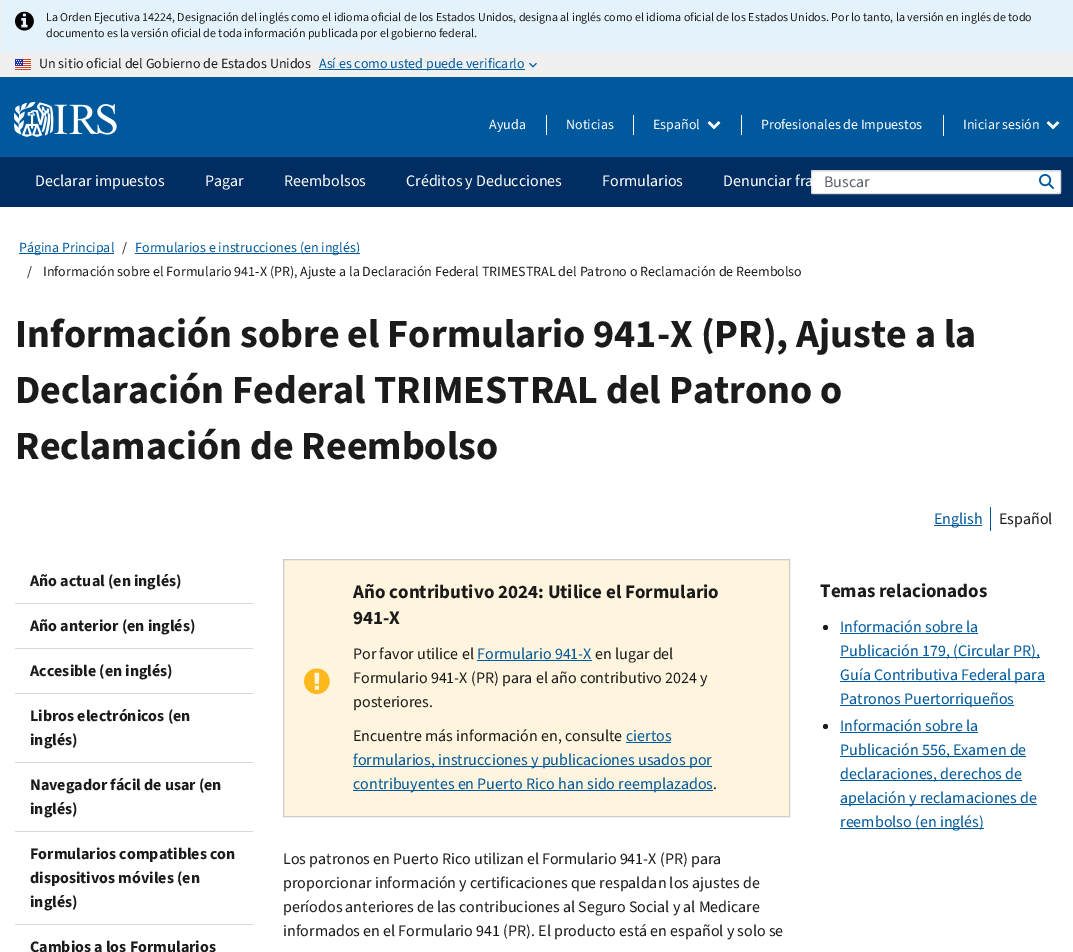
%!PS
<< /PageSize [1073 952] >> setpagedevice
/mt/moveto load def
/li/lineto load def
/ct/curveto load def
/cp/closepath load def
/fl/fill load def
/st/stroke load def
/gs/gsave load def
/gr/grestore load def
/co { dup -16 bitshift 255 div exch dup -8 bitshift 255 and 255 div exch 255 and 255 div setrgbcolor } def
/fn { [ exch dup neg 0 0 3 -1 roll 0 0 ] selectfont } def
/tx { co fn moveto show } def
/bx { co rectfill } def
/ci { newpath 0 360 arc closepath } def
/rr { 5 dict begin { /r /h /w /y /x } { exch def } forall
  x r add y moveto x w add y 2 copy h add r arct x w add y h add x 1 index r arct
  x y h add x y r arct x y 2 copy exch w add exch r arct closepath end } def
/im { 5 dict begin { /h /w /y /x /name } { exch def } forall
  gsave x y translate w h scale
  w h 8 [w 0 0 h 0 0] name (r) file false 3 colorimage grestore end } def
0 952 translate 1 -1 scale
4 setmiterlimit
0 0 1073 952 16#FFFFFF bx
0 0 1073 77 16#F0F0F0 bx
1 0 1072 52 16#E4F3FB bx
(media/1.raw) 15 11 19 20 im
(media/2.raw) 15 59 16 11 im
319 69 206 1 16#005EA2 bx
(media/3.raw) 529 62 8 6 im
0 77 1073 80 16#00599C bx
(media/4.raw) 14 102 103 35 im
546 115 1 20 16#FFFFFF bx
633 115 1 20 16#FFFFFF bx
(media/5.raw) 707 121 14 9 im
741 115 1 20 16#FFFFFF bx
943 115 1 21 16#FFFFFF bx
(media/5.raw) 1046 121 14 9 im
0 157 1073 50 16#002D62 bx
16#FFFFFF co
811 170 250 24 2 rr fl
16#ECECEC co
813 172 mt 1059 172 li 1060 172 1060 172 1060 173 ct 1060 172 1060 171 1059 171 ct 812 171 li 812 173 li 812 172 812 172 813 172 ct cp fl
16#D6D7D9 co
811.5 170.5 249 23 1.5 rr st
(media/6.raw) 1039 174 15 15 im
19 253 95 1 16#00599C bx
135 253 225 1 16#00599C bx
934 525 48 1 16#00599C bx
990 507 1 24 16#00599C bx
15 603 238 1 16#D6D7D9 bx
15 648 238 1 16#D6D7D9 bx
15 693 238 1 16#D6D7D9 bx
15 762 238 1 16#D6D7D9 bx
15 831 238 1 16#D6D7D9 bx
15 924 238 1 16#D6D7D9 bx
16#FFF4DD co
283.5 559.5 mt 789.5 559.5 li 789.5 816.5 li 283.5 816.5 li cp gs fl gr
16#CCCCCC co
st
(media/7.raw) 304 668 26 27 im
477 660 115 1 16#00599C bx
626 742 45 1 16#00599C bx
353 766 359 1 16#00599C bx
353 790 360 1 16#00599C bx
16#1B1B1B co
825.5 627.5 2.5 ci fl
840 633 138 1 16#00599C bx
840 657 200 1 16#00599C bx
840 681 205 1 16#00599C bx
840 705 174 1 16#00599C bx
16#1B1B1B co
825.5 726.5 2.5 ci fl
840 732 138 1 16#00599C bx
840 756 186 1 16#00599C bx
840 780 182 1 16#00599C bx
840 804 197 1 16#00599C bx
840 828 144 1 16#00599C bx
(La Orden Ejecutiva 14224, Designación del inglés como el idioma oficial de los Estados Unidos, designa al inglés como el idioma oficial de los Estados Unidos. Por lo tanto, la versión en inglés de todo) 46 21 /SourceSans3-Regular 12 16#1B1B1B tx
(documento es la versión oficial de toda información publicada por el gobierno federal.) 46 37 /SourceSans3-Regular 12 16#1B1B1B tx
(Un sitio oficial del Gobierno de Estados Unidos) 39 68 /SourceSans3-Regular 14 16#1B1B1B tx
(Así es como usted puede verificarlo) 319 68 /SourceSans3-Regular 14 16#005EA2 tx
(Ayuda) 489 129 /SourceSans3-Regular 14 16#FFFFFF tx
(Noticias) 566 129 /SourceSans3-Regular 14 16#FFFFFF tx
(Español) 653 129 /SourceSans3-Regular 14 16#FFFFFF tx
(Profesionales de Impuestos) 761 129 /SourceSans3-Regular 14 16#FFFFFF tx
(Iniciar sesión) 963 129 /SourceSans3-Regular 14 16#FFFFFF tx
(Declarar impuestos) 35 186 /SourceSans3-Regular 16 16#FFFFFF tx
(Pagar) 205 186 /SourceSans3-Regular 16 16#FFFFFF tx
(Reembolsos) 284 186 /SourceSans3-Regular 16 16#FFFFFF tx
(Créditos y Deducciones) 406 186 /SourceSans3-Regular 16 16#FFFFFF tx
(Formularios) 602 186 /SourceSans3-Regular 16 16#FFFFFF tx
(Denunciar fra) 723 186 /SourceSans3-Regular 16 16#FFFFFF tx
(Buscar) 824 187 /SourceSans3-Regular 16 16#5B616B tx
(Página Principal) 19 252 /SourceSans3-Regular 14 16#00599C tx
(/) 122 252 /SourceSans3-Regular 14 16#1B1B1B tx
(Formularios e instrucciones \(en inglés\)) 135 252 /SourceSans3-Regular 14 16#00599C tx
(/) 27 276 /SourceSans3-Regular 14 16#1B1B1B tx
(Información sobre el Formulario 941-X \(PR\), Ajuste a la Declaración Federal TRIMESTRAL del Patrono o Reclamación de Reembolso) 43 276 /SourceSans3-Regular 14 16#1B1B1B tx
(Información sobre el Formulario 941-X \(PR\), Ajuste a la) 15 347 /SourceSans3-Bold 40 16#1B1B1B tx
(Declaración Federal TRIMESTRAL del Patrono o) 15 403 /SourceSans3-Bold 40 16#1B1B1B tx
(Reclamación de Reembolso) 15 459 /SourceSans3-Bold 40 16#1B1B1B tx
(English) 934 524 /SourceSans3-Regular 16 16#00599C tx
(Español) 999 524 /SourceSans3-Regular 16 16#1B1B1B tx
(Año actual \(en inglés\)) 30 586 /SourceSans3-Bold 16 16#1B1B1B tx
(Año anterior \(en inglés\)) 30 631 /SourceSans3-Bold 16 16#1B1B1B tx
(Accesible \(en inglés\)) 30 676 /SourceSans3-Bold 16 16#1B1B1B tx
(Libros electrónicos \(en) 30 721 /SourceSans3-Bold 16 16#1B1B1B tx
(inglés\)) 30 745 /SourceSans3-Bold 16 16#1B1B1B tx
(Navegador fácil de usar \(en) 30 790 /SourceSans3-Bold 16 16#1B1B1B tx
(inglés\)) 30 814 /SourceSans3-Bold 16 16#1B1B1B tx
(Formularios compatibles con) 30 859 /SourceSans3-Bold 16 16#1B1B1B tx
(dispositivos móviles \(en) 30 883 /SourceSans3-Bold 16 16#1B1B1B tx
(inglés\)) 30 907 /SourceSans3-Bold 16 16#1B1B1B tx
(Cambios a los Formularios) 30 952 /SourceSans3-Bold 16 16#1B1B1B tx
(Año contributivo 2024: Utilice el Formulario) 353 598 /SourceSans3-Bold 19 16#1B1B1B tx
(941-X) 353 624 /SourceSans3-Bold 19 16#1B1B1B tx
(Por favor utilice el) 353 659 /SourceSans3-Regular 16 16#1B1B1B tx
(Formulario 941-X) 477 659 /SourceSans3-Regular 16 16#00599C tx
(en lugar del) 595 659 /SourceSans3-Regular 16 16#1B1B1B tx
(Formulario 941-X \(PR\) para el año contributivo 2024 y) 353 683 /SourceSans3-Regular 16 16#1B1B1B tx
(posteriores.) 353 707 /SourceSans3-Regular 16 16#1B1B1B tx
(Encuentre más información en, consulte) 353 741 /SourceSans3-Regular 16 16#1B1B1B tx
(ciertos) 626 741 /SourceSans3-Regular 16 16#00599C tx
(formularios, instrucciones y publicaciones usados por) 353 765 /SourceSans3-Regular 16 16#00599C tx
(contribuyentes en Puerto Rico han sido reemplazados) 353 789 /SourceSans3-Regular 16 16#00599C tx
(.) 713 789 /SourceSans3-Regular 16 16#1B1B1B tx
(Los patronos en Puerto Rico utilizan el Formulario 941-X \(PR\) para) 283 864 /SourceSans3-Regular 16 16#1B1B1B tx
(proporcionar información y certificaciones que respaldan los ajustes de) 283 888 /SourceSans3-Regular 16 16#1B1B1B tx
(períodos anteriores de las contribuciones al Seguro Social y al Medicare) 283 912 /SourceSans3-Regular 16 16#1B1B1B tx
(informados en el Formulario 941 \(PR\). El producto está en español y solo se) 283 936 /SourceSans3-Regular 16 16#1B1B1B tx
(Temas relacionados) 820 597 /SourceSans3-Bold 19 16#1B1B1B tx
(Información sobre la) 840 632 /SourceSans3-Regular 16 16#00599C tx
(Publicación 179, \(Circular PR\),) 840 656 /SourceSans3-Regular 16 16#00599C tx
(Guía Contributiva Federal para) 840 680 /SourceSans3-Regular 16 16#00599C tx
(Patronos Puertorriqueños) 840 704 /SourceSans3-Regular 16 16#00599C tx
(Información sobre la) 840 731 /SourceSans3-Regular 16 16#00599C tx
(Publicación 556, Examen de) 840 755 /SourceSans3-Regular 16 16#00599C tx
(declaraciones, derechos de) 840 779 /SourceSans3-Regular 16 16#00599C tx
(apelación y reclamaciones de) 840 803 /SourceSans3-Regular 16 16#00599C tx
(reembolso \(en inglés\)) 840 827 /SourceSans3-Regular 16 16#00599C tx
showpage
